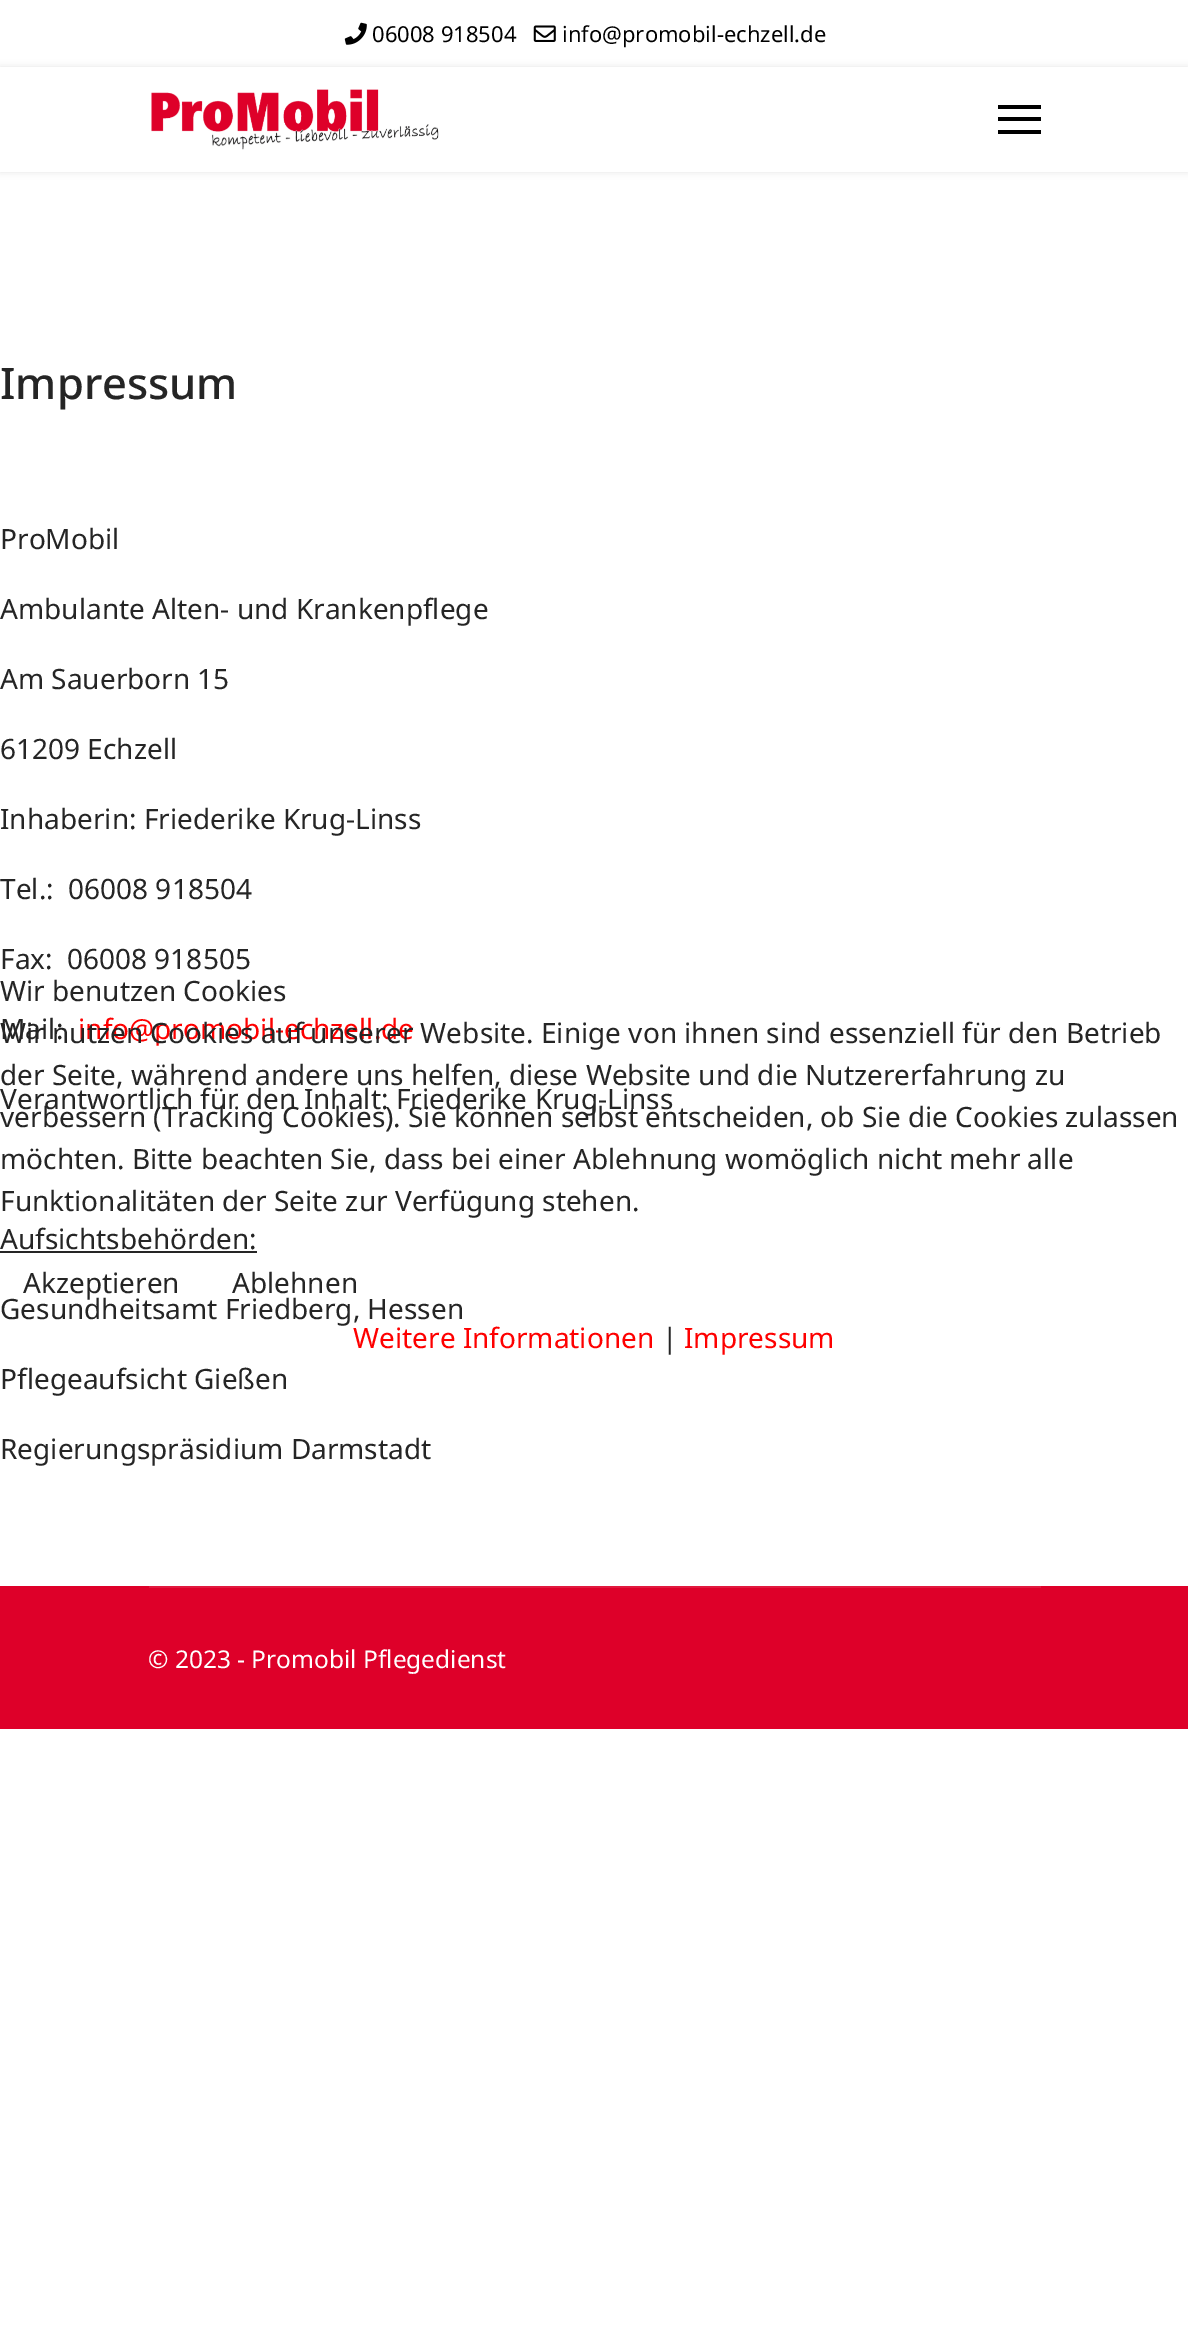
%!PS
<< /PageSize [1188 2326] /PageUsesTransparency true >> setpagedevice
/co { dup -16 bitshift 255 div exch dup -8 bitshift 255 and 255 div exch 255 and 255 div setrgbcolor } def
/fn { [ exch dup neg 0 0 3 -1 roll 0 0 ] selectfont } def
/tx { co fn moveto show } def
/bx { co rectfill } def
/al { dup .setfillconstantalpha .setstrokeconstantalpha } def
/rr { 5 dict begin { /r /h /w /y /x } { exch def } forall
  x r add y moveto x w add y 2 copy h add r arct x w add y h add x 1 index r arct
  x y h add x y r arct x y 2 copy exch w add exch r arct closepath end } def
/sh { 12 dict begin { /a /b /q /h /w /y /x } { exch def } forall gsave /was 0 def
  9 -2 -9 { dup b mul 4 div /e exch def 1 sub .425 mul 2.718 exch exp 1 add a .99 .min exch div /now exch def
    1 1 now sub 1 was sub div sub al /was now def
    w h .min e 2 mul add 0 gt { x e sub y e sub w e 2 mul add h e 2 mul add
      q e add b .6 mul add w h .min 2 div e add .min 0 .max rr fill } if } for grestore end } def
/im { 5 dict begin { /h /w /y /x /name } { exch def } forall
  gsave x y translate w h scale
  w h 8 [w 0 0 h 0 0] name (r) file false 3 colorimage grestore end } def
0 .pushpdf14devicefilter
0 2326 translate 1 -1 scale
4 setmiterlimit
0 0 1188 2326 16#FFFFFF bx
(media/1.raw) 344 22 23 23 im
(media/2.raw) 533 25 23 17 im
16#000000 co
0 67 1188 105 0 3.5 .1 sh
0 67 1188 105 16#FFFFFF bx
(media/3.raw) 151 89 288 61 im
998 105 43 4 16#000000 bx
998 117 43 4 16#000000 bx
998 130 43 4 16#000000 bx
0 1251 257 2 16#252525 bx
0 1586 1188 143 16#DE0029 bx
149 1586 892 2 16#E11A3E bx
(06008 918504) 372 42 /NotoSans-Regular 22 16#000000 tx
(info@promobil-echzell.de) 562 42 /NotoSans-Regular 22 16#000000 tx
(Impressum) 0 399 /NotoSans-Medium 43.5 16#252525 tx
(ProMobil) 0 549 /NotoSans-Regular 28 16#252525 tx
(Ambulante Alten- und Krankenpflege) 0 619 /NotoSans-Regular 28 16#252525 tx
(Am Sauerborn 15) 0 689 /NotoSans-Regular 28 16#252525 tx
(61209 Echzell) 0 759 /NotoSans-Regular 28 16#252525 tx
(Inhaberin: Friederike Krug-Linss) 0 829 /NotoSans-Regular 28 16#252525 tx
(Tel.:  06008 918504) 0 899 /NotoSans-Regular 28 16#252525 tx
(Fax:  06008 918505) 0 969 /NotoSans-Regular 28 16#252525 tx
(Mail:) 0 1039 /NotoSans-Regular 28 16#252525 tx
(info@promobil-echzell.de) 78 1039 /NotoSans-Regular 28 16#FE0000 tx
(Verantwortlich für den Inhalt: Friederike Krug-Linss) 0 1109 /NotoSans-Regular 28 16#252525 tx
(Aufsichtsbehörden:) 0 1249 /NotoSans-Regular 28 16#252525 tx
(Gesundheitsamt Friedberg, Hessen) 0 1319 /NotoSans-Regular 28 16#252525 tx
(Pflegeaufsicht Gießen) 0 1389 /NotoSans-Regular 28 16#252525 tx
(Regierungspräsidium Darmstadt) 0 1459 /NotoSans-Regular 28 16#252525 tx
(© 2023 - Promobil Pflegedienst) 148 1668 /NotoSans-Regular 24.5 16#FFFFFF tx
(Wir benutzen Cookies) 0 1001 /NotoSans-Regular 28 16#252525 tx
(Wir nutzen Cookies auf unserer Website. Einige von ihnen sind essenziell für den Betrieb) 0 1043 /NotoSans-Regular 28 16#252525 tx
(der Seite, während andere uns helfen, diese Website und die Nutzererfahrung zu) 0 1085 /NotoSans-Regular 28 16#252525 tx
(verbessern \(Tracking Cookies\). Sie können selbst entscheiden, ob Sie die Cookies zulassen) 0 1127 /NotoSans-Regular 28 16#252525 tx
(möchten. Bitte beachten Sie, dass bei einer Ablehnung womöglich nicht mehr alle) 0 1169 /NotoSans-Regular 28 16#252525 tx
(Funktionalitäten der Seite zur Verfügung stehen.) 0 1211 /NotoSans-Regular 28 16#252525 tx
(Akzeptieren) 23 1293 /NotoSans-Regular 28 16#252525 tx
(Ablehnen) 232 1293 /NotoSans-Regular 28 16#252525 tx
(Weitere Informationen) 353 1348 /NotoSans-Regular 28 16#FE0000 tx
(|) 662 1348 /NotoSans-Regular 28 16#252525 tx
(Impressum) 684 1348 /NotoSans-Regular 28 16#FE0000 tx
.poppdf14devicefilter showpage
